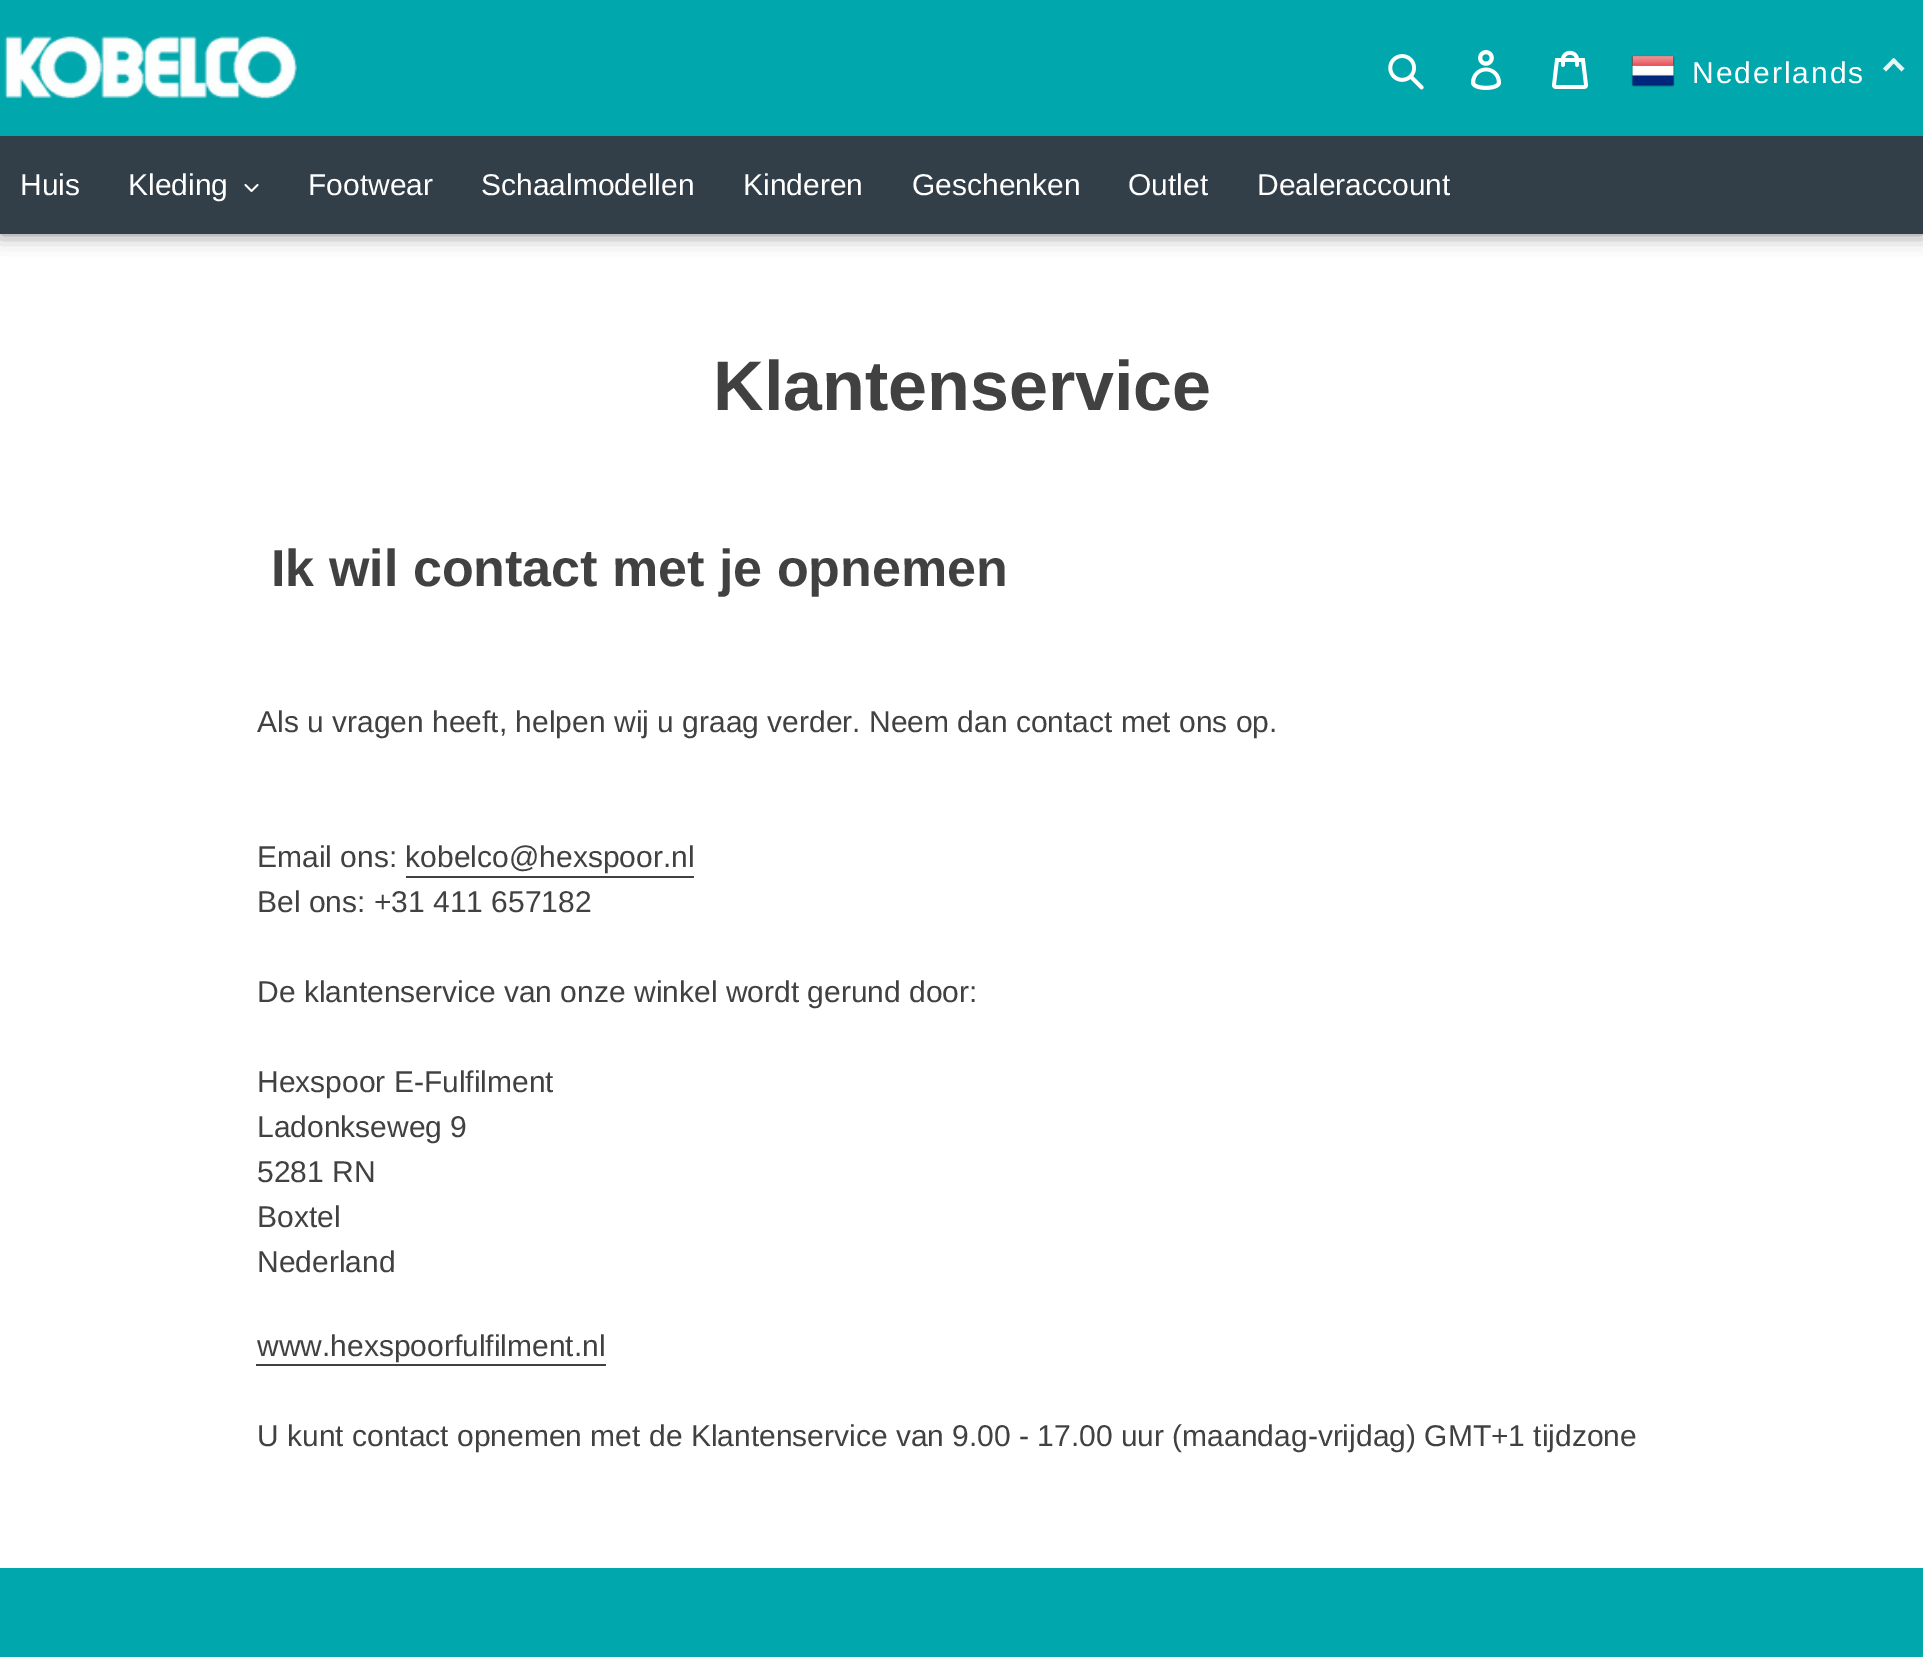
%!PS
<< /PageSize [1923 1657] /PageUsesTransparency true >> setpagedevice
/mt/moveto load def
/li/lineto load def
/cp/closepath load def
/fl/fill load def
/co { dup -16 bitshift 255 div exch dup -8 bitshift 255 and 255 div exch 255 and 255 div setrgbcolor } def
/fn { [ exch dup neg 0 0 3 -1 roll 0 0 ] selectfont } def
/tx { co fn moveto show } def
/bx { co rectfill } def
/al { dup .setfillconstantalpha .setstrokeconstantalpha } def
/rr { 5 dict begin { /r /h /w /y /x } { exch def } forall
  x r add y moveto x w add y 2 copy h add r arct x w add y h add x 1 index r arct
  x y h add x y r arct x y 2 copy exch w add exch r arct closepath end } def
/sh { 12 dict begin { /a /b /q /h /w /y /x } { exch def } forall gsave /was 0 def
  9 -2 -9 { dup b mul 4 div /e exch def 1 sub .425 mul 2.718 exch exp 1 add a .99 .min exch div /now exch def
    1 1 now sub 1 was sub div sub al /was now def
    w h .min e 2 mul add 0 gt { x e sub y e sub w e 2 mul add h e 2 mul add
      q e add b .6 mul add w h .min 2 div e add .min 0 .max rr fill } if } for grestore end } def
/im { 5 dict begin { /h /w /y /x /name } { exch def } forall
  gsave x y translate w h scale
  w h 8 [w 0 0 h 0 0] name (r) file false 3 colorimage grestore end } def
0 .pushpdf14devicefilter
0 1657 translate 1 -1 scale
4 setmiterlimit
0 0 1923 1657 16#FFFFFF bx
16#000000 co
0 0 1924 234 0 10 .5 sh
0 0 1923 136 16#00A7AC bx
(media/1.raw) 4 36 293 64 im
(media/2.raw) 1388 54 36 36 im
(media/3.raw) 1471 50 31 40 im
(media/4.raw) 1552 50 36 39 im
(media/5.raw) 1631 55 44 32 im
16#E6F6F7 co
1893.5 58 mt 1904.5 68.5 li 1901.5 71.5 li 1891 60.5 li cp fl
1893.5 58 mt 1896.5 60.5 li 1886 71.5 li 1883 68.5 li cp fl
0 136 1923 98 16#333F48 bx
(media/6.raw) 244 184 15 8 im
406 876 288 2 16#414141 bx
256 1364 350 2 16#414141 bx
0 1568 1923 89 16#00A7AC bx
/LiberationSans-Regular 30 fn
16#FFFFFF co
1692 83 mt 2 0 (Nederlands) ashow
(Huis) 20 195 /LiberationSans-Regular 30 16#FFFFFF tx
(Kleding) 128 195 /LiberationSans-Regular 30 16#FFFFFF tx
(Footwear) 308 195 /LiberationSans-Regular 30 16#FFFFFF tx
(Schaalmodellen) 481 195 /LiberationSans-Regular 30 16#FFFFFF tx
(Kinderen) 743 195 /LiberationSans-Regular 30 16#FFFFFF tx
(Geschenken) 912 195 /LiberationSans-Regular 30 16#FFFFFF tx
(Outlet) 1128 195 /LiberationSans-Regular 30 16#FFFFFF tx
(Dealeraccount) 1257 195 /LiberationSans-Regular 30 16#FFFFFF tx
(Klantenservice) 713 410 /LiberationSans-Bold 70 16#414141 tx
(Ik wil contact met je opnemen) 271 586 /LiberationSans-Bold 52 16#414141 tx
(Als u vragen heeft, helpen wij u graag verder. Neem dan contact met ons op.) 257 732 /LiberationSans-Regular 30 16#414141 tx
(Email ons: kobelco@hexspoor.nl) 257 867 /LiberationSans-Regular 30 16#414141 tx
(Bel ons: +31 411 657182) 257 912 /LiberationSans-Regular 30 16#414141 tx
(De klantenservice van onze winkel wordt gerund door:) 257 1002 /LiberationSans-Regular 30 16#414141 tx
(Hexspoor E-Fulfilment) 257 1092 /LiberationSans-Regular 30 16#414141 tx
(Ladonkseweg 9) 257 1137 /LiberationSans-Regular 30 16#414141 tx
(5281 RN) 257 1182 /LiberationSans-Regular 30 16#414141 tx
(Boxtel) 257 1227 /LiberationSans-Regular 30 16#414141 tx
(Nederland) 257 1272 /LiberationSans-Regular 30 16#414141 tx
(www.hexspoorfulfilment.nl) 257 1356 /LiberationSans-Regular 30 16#414141 tx
(U kunt contact opnemen met de Klantenservice van 9.00 - 17.00 uur \(maandag-vrijdag\) GMT+1 tijdzone) 257 1446 /LiberationSans-Regular 30 16#414141 tx
.poppdf14devicefilter showpage
